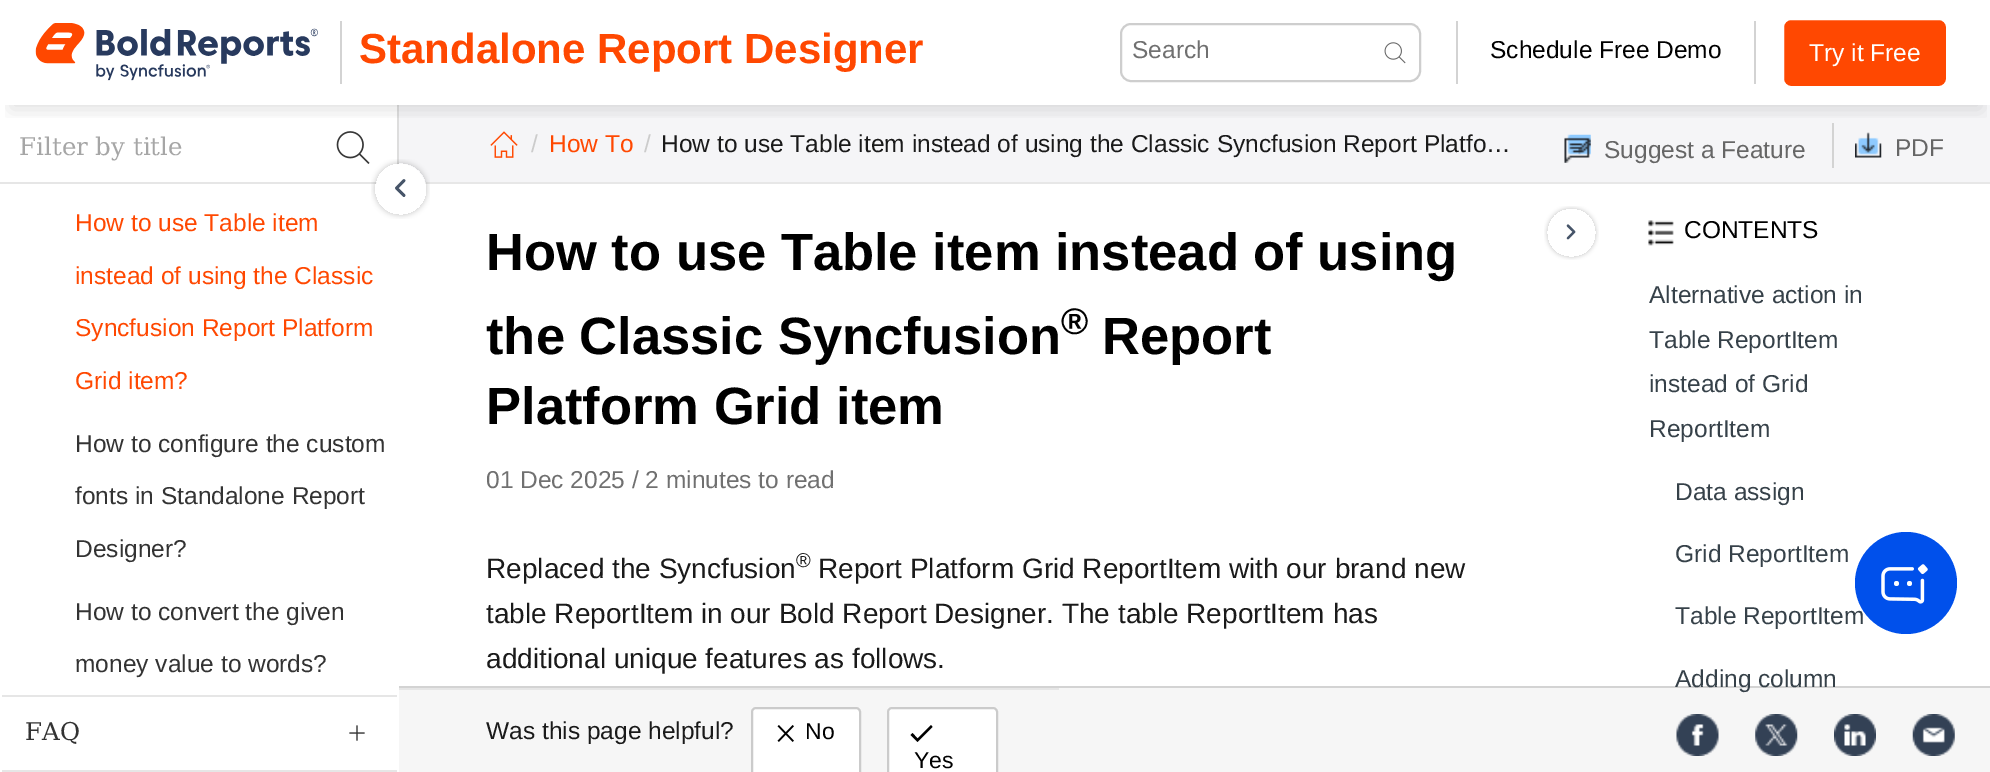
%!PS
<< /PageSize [1990 772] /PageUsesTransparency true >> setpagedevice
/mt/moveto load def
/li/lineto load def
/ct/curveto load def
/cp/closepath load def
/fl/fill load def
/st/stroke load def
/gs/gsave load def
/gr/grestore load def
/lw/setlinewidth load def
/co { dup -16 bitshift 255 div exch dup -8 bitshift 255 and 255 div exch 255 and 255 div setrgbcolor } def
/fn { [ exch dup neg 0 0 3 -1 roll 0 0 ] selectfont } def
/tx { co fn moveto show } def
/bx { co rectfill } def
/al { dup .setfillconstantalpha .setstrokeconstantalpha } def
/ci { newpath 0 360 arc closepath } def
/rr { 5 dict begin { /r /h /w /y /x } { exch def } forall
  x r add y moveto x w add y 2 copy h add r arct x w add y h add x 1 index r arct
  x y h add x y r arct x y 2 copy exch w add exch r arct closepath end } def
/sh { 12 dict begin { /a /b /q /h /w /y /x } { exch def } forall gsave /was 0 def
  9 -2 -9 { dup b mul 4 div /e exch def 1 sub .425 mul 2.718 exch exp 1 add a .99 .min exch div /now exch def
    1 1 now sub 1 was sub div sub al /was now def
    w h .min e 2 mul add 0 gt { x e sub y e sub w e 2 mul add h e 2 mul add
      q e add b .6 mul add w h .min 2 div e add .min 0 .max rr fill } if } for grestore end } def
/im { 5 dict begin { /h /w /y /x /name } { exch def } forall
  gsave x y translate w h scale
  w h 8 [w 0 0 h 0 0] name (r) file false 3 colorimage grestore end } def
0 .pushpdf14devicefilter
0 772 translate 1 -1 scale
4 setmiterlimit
0 0 1990 772 16#FFFFFF bx
397 105 2 60 16#DDDDDD bx
(media/3.raw) 336 131 34 33 im
399 105 1591 77 16#F5F5F7 bx
(media/5.raw) 490 131 28 27 im
1832 123 2 45 16#D3D3D3 bx
(media/6.raw) 1564 134 27 29 im
(media/7.raw) 1855 132 27 26 im
gs
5 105 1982 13 rectclip
16#000000 co
11 25 1970 84 0 9.5 .12 sh
gr
(media/1.raw) 35 23 283 58 im
340 21 2 63 16#D3D3D3 bx
16#CECECE co
2 lw
1121 24 299 57 10 rr st
(media/2.raw) 1384 42 22 22 im
1456 21 2 63 16#D3D3D3 bx
1754 21 2 63 16#D3D3D3 bx
16#FF4801 co
1783 19 164 68 8 rr gs fl gr
16#FFFFFF co
st
0 182 377 2 16#E6E6E6 bx
2 695 395 2 16#E6E6E6 bx
2 770 395 2 16#E6E6E6 bx
(media/4.raw) 349 725 16 16 im
424 182 1566 2 16#E7E7E7 bx
(media/8.raw) 1648 220 26 26 im
(media/9.raw) 371 159 59 60 im
(media/10.raw) 1544 206 55 54 im
399 688 1591 84 16#F6F6F6 bx
399 686 1591 2 16#D3D3D3 bx
399 688 660 2 16#E6E6E6 bx
16#FFFFFF co
756 707 mt 856 707 li 859 707 861 709 861 712 ct 861 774 li 751 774 li 751 712 li 751 709 753 707 756 707 ct cp fl
16#CBCBCB co
752 708 108 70 4 rr st
(media/11.raw) 777 725 17 17 im
16#FFFFFF co
892 707 mt 993 707 li 996 707 998 709 998 712 ct 998 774 li 887 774 li 887 712 li 887 709 889 707 892 707 ct cp fl
16#CBCBCB co
888 708 109 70 4 rr st
16#000000 co
917.5 738.5 mt 931 725 li 932.5 727 li 917.5 742 li 910.5 735 li 912.5 733 li cp fl
(media/12.raw) 1676 714 43 42 im
(media/13.raw) 1755 714 43 42 im
(media/14.raw) 1834 714 42 42 im
(media/15.raw) 1912 714 43 42 im
(Standalone Report Designer) 359 63 /LiberationSans-Bold 42 16#FF4801 tx
(Search) 1132 58 /LiberationSans-Regular 24.5 16#707070 tx
(Schedule Free Demo) 1490 58 /LiberationSans-Regular 24.5 16#000000 tx
(Try it Free) 1809 61 /LiberationSans-Regular 24.5 16#FFFFFF tx
(Filter by title) 19 155 /DejaVuSerif-Regular 24.5 16#A6A6A6 tx
(How to use Table item) 75 231 /LiberationSans-Regular 24.5 16#FF4801 tx
(instead of using the Classic) 75 284 /LiberationSans-Regular 24.5 16#FF4801 tx
(Syncfusion Report Platform) 75 336 /LiberationSans-Regular 24.5 16#FF4801 tx
(Grid item?) 75 389 /LiberationSans-Regular 24.5 16#FF4801 tx
(How to configure the custom) 75 452 /LiberationSans-Regular 24.5 16#333333 tx
(fonts in Standalone Report) 75 504 /LiberationSans-Regular 24.5 16#333333 tx
(Designer?) 75 557 /LiberationSans-Regular 24.5 16#333333 tx
(How to convert the given) 75 620 /LiberationSans-Regular 24.5 16#333333 tx
(money value to words?) 75 672 /LiberationSans-Regular 24.5 16#333333 tx
(FAQ) 25 740 /DejaVuSerif-Regular 24.5 16#333333 tx
(/) 531 152 /LiberationSans-Regular 24.5 16#CCCCCC tx
(How To) 549 152 /LiberationSans-Regular 24.5 16#FF4801 tx
(/) 644 152 /LiberationSans-Regular 24.5 16#CCCCCC tx
(How to use Table item instead of using the Classic Syncfusion Report Platfo…) 661 152 /LiberationSans-Regular 24.5 16#1A1A1A tx
(Suggest a Feature) 1604 158 /LiberationSans-Regular 24.5 16#666666 tx
(PDF) 1895 156 /LiberationSans-Regular 24.5 16#666666 tx
(How to use Table item instead of using) 486 270 /LiberationSans-Bold 52.5 16#000000 tx
(the Classic Syncfusion) 486 354 /LiberationSans-Bold 52.5 16#000000 tx
(®) 1061 334 /LiberationSans-Bold 37 16#000000 tx
(Report) 1102 354 /LiberationSans-Bold 52.5 16#000000 tx
(Platform Grid item) 486 424 /LiberationSans-Bold 52.5 16#000000 tx
(01 Dec 2025 / 2 minutes to read) 486 488 /LiberationSans-Regular 24.5 16#707070 tx
(Replaced the Syncfusion) 486 578 /LiberationSans-Regular 28 16#1A1A1A tx
(®) 796 567 /LiberationSans-Regular 20 16#1A1A1A tx
(Report Platform Grid ReportItem with our brand new) 818 578 /LiberationSans-Regular 28 16#1A1A1A tx
(table ReportItem in our Bold Report Designer. The table ReportItem has) 486 623 /LiberationSans-Regular 28 16#1A1A1A tx
(additional unique features as follows.) 486 668 /LiberationSans-Regular 28 16#1A1A1A tx
(CONTENTS) 1684 238 /LiberationSans-Regular 24.5 16#000000 tx
(Alternative action in) 1649 303 /LiberationSans-Regular 24.5 16#364149 tx
(Table ReportItem) 1649 348 /LiberationSans-Regular 24.5 16#364149 tx
(instead of Grid) 1649 392 /LiberationSans-Regular 24.5 16#364149 tx
(ReportItem) 1649 437 /LiberationSans-Regular 24.5 16#364149 tx
(Data assign) 1675 500 /LiberationSans-Regular 24.5 16#364149 tx
(Grid ReportItem) 1675 562 /LiberationSans-Regular 24.5 16#364149 tx
(Table ReportItem) 1675 624 /LiberationSans-Regular 24.5 16#364149 tx
(Adding column) 1675 687 /LiberationSans-Regular 24.5 16#364149 tx
(Was this page helpful?) 486 739 /LiberationSans-Regular 24.5 16#1A1A1A tx
(No) 805 739 /LiberationSans-Regular 23 16#000000 tx
(Yes) 914 768 /LiberationSans-Regular 23 16#000000 tx
16#0050EB co
1906 583 51 ci fl
(media/16.raw) 1881 564 47 40 im
.poppdf14devicefilter showpage
